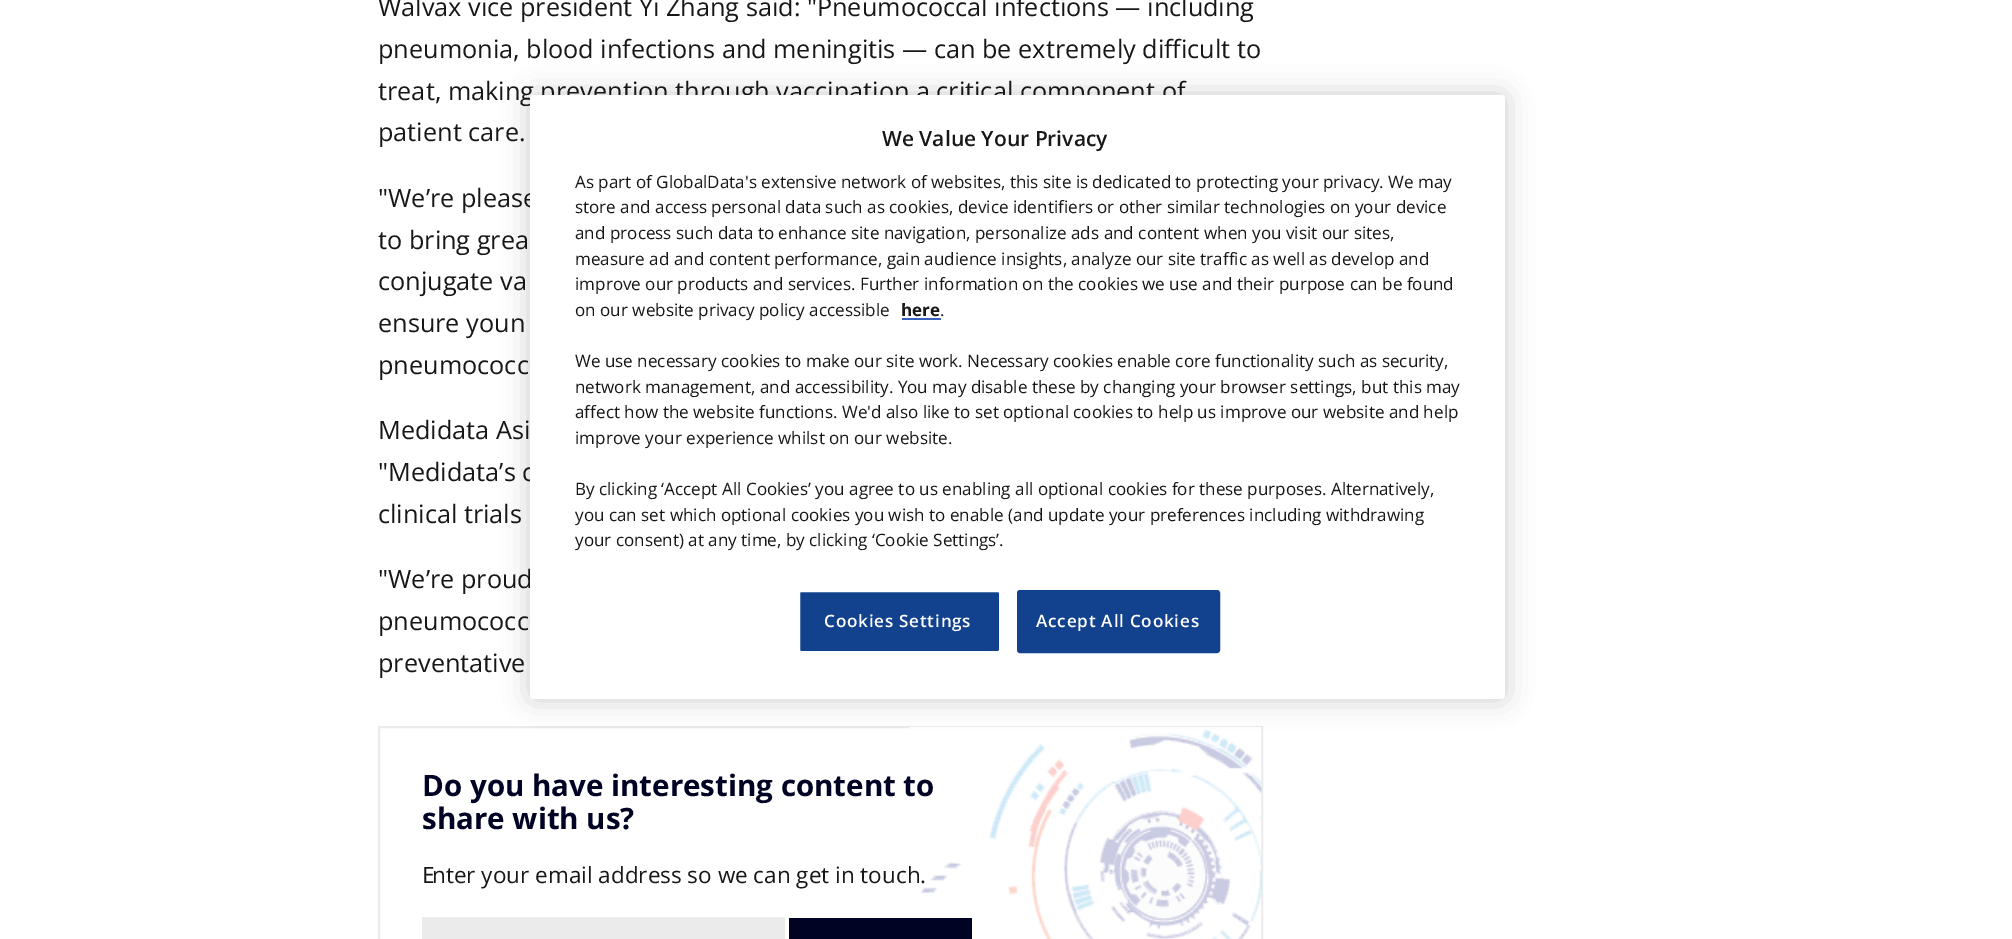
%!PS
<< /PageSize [2012 939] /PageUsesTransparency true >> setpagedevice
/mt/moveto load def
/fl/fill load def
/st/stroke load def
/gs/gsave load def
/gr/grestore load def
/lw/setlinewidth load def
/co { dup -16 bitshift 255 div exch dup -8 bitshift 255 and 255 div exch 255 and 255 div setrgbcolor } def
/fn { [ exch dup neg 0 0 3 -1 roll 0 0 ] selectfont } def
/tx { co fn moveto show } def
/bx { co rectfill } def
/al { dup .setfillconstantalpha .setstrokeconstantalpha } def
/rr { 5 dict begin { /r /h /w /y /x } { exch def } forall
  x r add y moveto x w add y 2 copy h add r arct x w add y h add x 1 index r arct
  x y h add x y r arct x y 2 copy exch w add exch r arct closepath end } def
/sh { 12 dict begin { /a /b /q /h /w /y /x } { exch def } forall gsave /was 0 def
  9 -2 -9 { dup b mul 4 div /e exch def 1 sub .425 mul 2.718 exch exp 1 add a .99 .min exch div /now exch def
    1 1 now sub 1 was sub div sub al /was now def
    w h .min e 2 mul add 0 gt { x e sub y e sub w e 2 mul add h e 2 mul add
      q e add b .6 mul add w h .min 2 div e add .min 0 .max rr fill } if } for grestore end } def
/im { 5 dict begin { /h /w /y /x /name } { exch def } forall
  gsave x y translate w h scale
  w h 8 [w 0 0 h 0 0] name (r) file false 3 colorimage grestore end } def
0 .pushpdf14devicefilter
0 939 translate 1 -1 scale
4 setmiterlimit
0 0 2012 939 16#FFFFFF bx
16#EBEBEB co
2 lw
379 727 883 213 rectstroke
(media/1.raw) 909 727 353 212 im
422 917 363 22 16#EBEBEB bx
789 918 183 21 16#010324 bx
16#000000 co
530 95 975 604 4 13.5 .2 sh
(Walvax vice president Yi Zhang said: "Pneumococcal infections — including) 378 16 /OpenSans-Regular 25.25 16#171717 tx
(pneumonia, blood infections and meningitis — can be extremely difficult to) 378 58 /OpenSans-Regular 25.25 16#171717 tx
(treat, making prevention through vaccination a critical component of) 378 100 /OpenSans-Regular 25.25 16#171717 tx
(patient care.) 378 141 /OpenSans-Regular 25.25 16#171717 tx
("We’re please) 378 207 /OpenSans-Regular 25.25 16#171717 tx
(to bring grea) 378 249 /OpenSans-Regular 25.25 16#171717 tx
(conjugate va) 378 290 /OpenSans-Regular 25.25 16#171717 tx
(ensure youn) 378 332 /OpenSans-Regular 25.25 16#171717 tx
(pneumococc) 378 374 /OpenSans-Regular 25.25 16#171717 tx
(Medidata Asi) 378 439 /OpenSans-Regular 25.25 16#171717 tx
("Medidata’s c) 378 481 /OpenSans-Regular 25.25 16#171717 tx
(clinical trials) 378 523 /OpenSans-Regular 25.25 16#171717 tx
("We’re proud) 378 588 /OpenSans-Regular 25.25 16#171717 tx
(pneumococc) 378 630 /OpenSans-Regular 25.25 16#171717 tx
(preventative) 378 672 /OpenSans-Regular 25.25 16#171717 tx
(Do you have interesting content to) 422 796 /OpenSans-Bold 29.5 16#010324 tx
(share with us?) 422 829 /OpenSans-Bold 29.5 16#010324 tx
(E) 422 883 /NotoSans-Regular 22.5 16#171717 tx
(nter your email address so we can get in touch.) 432 883 /OpenSans-Regular 22.5 16#171717 tx
16#FFFFFF co
530 95 975 604 4 rr fl
(We Value Your Privacy) 882 146 /OpenSans-SemiBold 21 16#171717 tx
(As part of GlobalData's extensive network of websites, this site is dedicated to protecting your privacy. We may) 575 188 /OpenSans-Regular 17.07 16#171717 tx
(store and access personal data such as cookies, device identifiers or other similar technologies on your device) 575 213 /OpenSans-Regular 17.07 16#171717 tx
(and process such data to enhance site navigation, personalize ads and content when you visit our sites,) 575 239 /OpenSans-Regular 17.07 16#171717 tx
(measure ad and content performance, gain audience insights, analyze our site traffic as well as develop and) 575 265 /OpenSans-Regular 17.07 16#171717 tx
(improve our products and services. Further information on the cookies we use and their purpose can be found) 575 290 /OpenSans-Regular 17.07 16#171717 tx
(on our website privacy policy accessible) 575 316 /OpenSans-Regular 17.07 16#171717 tx
(here) 901 316 /OpenSans-Bold 17.07 16#171717 tx
902 318 39 2 16#3860BE bx
(.) 940 316 /OpenSans-Regular 17.07 16#171717 tx
(We use necessary cookies to make our site work. Necessary cookies enable core functionality such as security,) 575 367 /OpenSans-Regular 17.07 16#171717 tx
(network management, and accessibility. You may disable these by changing your browser settings, but this may) 575 393 /OpenSans-Regular 17.07 16#171717 tx
(affect how the website functions. We'd also like to set optional cookies to help us improve our website and help) 575 418 /OpenSans-Regular 17.07 16#171717 tx
(improve your experience whilst on our website.) 575 444 /OpenSans-Regular 17.07 16#171717 tx
(By clicking ‘Accept All Cookies’ you agree to us enabling all optional cookies for these purposes. Alternatively,) 575 495 /OpenSans-Regular 17.07 16#171717 tx
(you can set which optional cookies you wish to enable \(and update your preferences including withdrawing) 575 521 /OpenSans-Regular 17.07 16#171717 tx
(your consent\) at any time, by clicking ‘Cookie Settings’.) 575 546 /OpenSans-Regular 17.07 16#171717 tx
16#12418D co
799 591 201 61 2 rr gs fl gr
16#FFFFFF co
st
/OpenSans-SemiBold 17.07 fn
824 627 mt .8 0 (Cookies Settings) ashow
16#12418D co
1018 591 201 61 2 rr gs fl gr
st
16#FFFFFF co
1036 627 mt .8 0 (Accept All Cookies) ashow
.poppdf14devicefilter showpage
